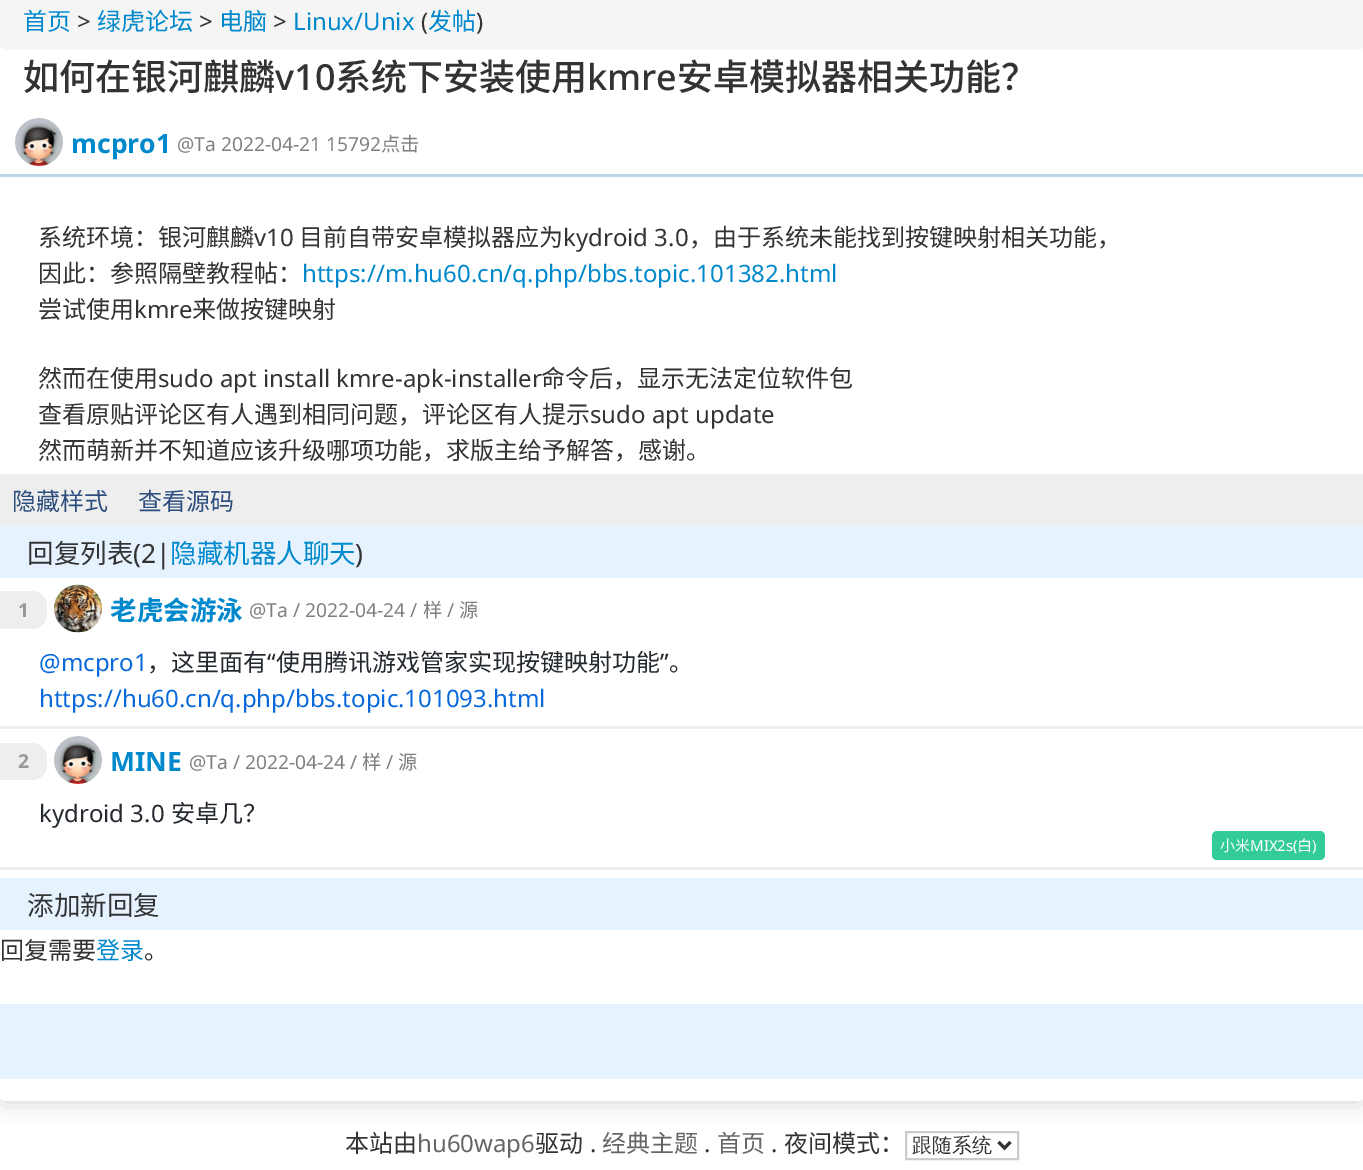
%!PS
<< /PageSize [1363 1170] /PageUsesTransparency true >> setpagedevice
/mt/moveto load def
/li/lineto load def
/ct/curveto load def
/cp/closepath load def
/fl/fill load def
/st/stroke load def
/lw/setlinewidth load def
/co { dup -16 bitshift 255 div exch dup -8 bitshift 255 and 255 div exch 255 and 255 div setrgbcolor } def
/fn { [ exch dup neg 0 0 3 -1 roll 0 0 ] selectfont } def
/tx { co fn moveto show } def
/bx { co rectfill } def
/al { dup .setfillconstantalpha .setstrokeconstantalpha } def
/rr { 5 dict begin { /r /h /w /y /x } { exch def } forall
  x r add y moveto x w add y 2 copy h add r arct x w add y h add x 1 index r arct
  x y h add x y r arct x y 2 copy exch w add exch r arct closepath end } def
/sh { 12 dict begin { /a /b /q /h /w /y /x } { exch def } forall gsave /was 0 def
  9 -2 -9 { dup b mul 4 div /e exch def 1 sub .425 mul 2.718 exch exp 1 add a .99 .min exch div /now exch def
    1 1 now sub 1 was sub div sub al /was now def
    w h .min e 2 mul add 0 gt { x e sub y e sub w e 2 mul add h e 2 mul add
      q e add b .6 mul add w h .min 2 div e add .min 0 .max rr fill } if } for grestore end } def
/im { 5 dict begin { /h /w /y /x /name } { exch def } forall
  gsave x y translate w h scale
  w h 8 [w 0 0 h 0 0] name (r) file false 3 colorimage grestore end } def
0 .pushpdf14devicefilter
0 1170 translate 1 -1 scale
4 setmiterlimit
0 0 1363 1170 16#FFFFFF bx
16#CCCCCC co
0 -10 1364 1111 5 11 1 sh
16#FFFFFF co
0 -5 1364 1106 5 rr fl
16#F5F5F5 co
0 -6 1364 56 6 rr fl
0 174 1363 3 16#BED8EA bx
(media/1.raw) 15 118 48 48 im
0 474 1363 51 16#EEEEEE bx
0 525 1363 53 16#E6F3FF bx
0 726 1363 3 16#EEEEEE bx
0 591 mt 32 591 li 40.5 591 47 597.5 47 606 ct 47 614 li 47 622.5 40.5 629 32 629 ct 0 629 li cp fl
(media/2.raw) 54 584 48 49 im
0 867 1363 3 16#EEEEEE bx
0 743 mt 32 743 li 40.5 743 47 749.5 47 758 ct 47 765 li 47 773.5 40.5 780 32 780 ct 0 780 li cp fl
(media/3.raw) 54 736 48 48 im
16#33CC99 co
1212 831 113 29 5 rr fl
0 878 1363 52 16#E6F3FF bx
0 1004 1363 75 16#E6F3FF bx
16#CCCCCC co
2 lw
906 1132 112 27 rectstroke
16#333333 co
3 lw
998.5 1142 mt 1004.5 1148 li 1010.5 1142 li st
(首页) 23 30 /NotoSansCJKSC-Regular 24 16#0088CC tx
(>) 77 30 /NotoSans-Regular 24 16#333333 tx
(绿虎论坛) 97 30 /NotoSansCJKSC-Regular 24 16#0088CC tx
(>) 199 30 /NotoSans-Regular 24 16#333333 tx
(电脑) 219 30 /NotoSansCJKSC-Regular 24 16#0088CC tx
(>) 273 30 /NotoSans-Regular 24 16#333333 tx
(Linux/Unix) 293 30 /NotoSans-Regular 24 16#0088CC tx
(\() 421 30 /NotoSans-Regular 24 16#333333 tx
(发帖) 428 30 /NotoSansCJKSC-Regular 24 16#0088CC tx
(\)) 476 30 /NotoSans-Regular 24 16#333333 tx
(如何在银河麒麟) 23 90 /NotoSansCJKSC-Medium 36 16#333333 tx
(v10) 275 90 /NotoSans-Medium 36 16#333333 tx
(系统下安装使用) 335 90 /NotoSansCJKSC-Medium 36 16#333333 tx
(kmre) 587 90 /NotoSans-Medium 36 16#333333 tx
(安卓模拟器相关功能？) 677 90 /NotoSansCJKSC-Medium 36 16#333333 tx
(mcpro1) 71 153 /NotoSans-Bold 26.5 16#0088CC tx
(@Ta 2022-04-21 15792) 177 151 /NotoSans-Regular 19.25 16#808080 tx
(点击) 381 151 /NotoSansCJKSC-Regular 19.25 16#808080 tx
(系统环境：银河麒麟) 38 246 /NotoSansCJKSC-Regular 24 16#333333 tx
(v10) 254 246 /NotoSans-Regular 24 16#333333 tx
(目前自带安卓模拟器应为) 299 246 /NotoSansCJKSC-Regular 24 16#333333 tx
(kydroid 3.0) 563 246 /NotoSans-Regular 24 16#333333 tx
(，由于系统未能找到按键映射相关功能，) 689 246 /NotoSansCJKSC-Regular 24 16#333333 tx
(因此：参照隔壁教程帖：) 38 282 /NotoSansCJKSC-Regular 24 16#333333 tx
(https://m.hu60.cn/q.php/bbs.topic.101382.html) 302 282 /NotoSans-Regular 24 16#0088CC tx
(尝试使用) 38 318 /NotoSansCJKSC-Regular 24 16#333333 tx
(kmre) 134 318 /NotoSans-Regular 24 16#333333 tx
(来做按键映射) 192 318 /NotoSansCJKSC-Regular 24 16#333333 tx
(然而在使用) 38 387 /NotoSansCJKSC-Regular 24 16#333333 tx
(sudo apt install kmre-apk-installer) 158 387 /NotoSans-Regular 24 16#333333 tx
(命令后，显示无法定位软件包) 541 387 /NotoSansCJKSC-Regular 24 16#333333 tx
(查看原贴评论区有人遇到相同问题，评论区有人提示) 38 423 /NotoSansCJKSC-Regular 24 16#333333 tx
(sudo apt update) 590 423 /NotoSans-Regular 24 16#333333 tx
(然而萌新并不知道应该升级哪项功能，求版主给予解答，感谢。) 38 459 /NotoSansCJKSC-Regular 24 16#333333 tx
(隐藏样式) 12 510 /NotoSansCJKSC-Regular 24 16#2E4E7E tx
(查看源码) 138 510 /NotoSansCJKSC-Regular 24 16#2E4E7E tx
(回复列表) 27 563 /NotoSansCJKSC-Regular 26.5 16#333333 tx
(\(2|) 133 563 /NotoSans-Regular 26.5 16#333333 tx
(隐藏机器人聊天) 170 563 /NotoSansCJKSC-Regular 26.5 16#0088CC tx
(\)) 355 563 /NotoSans-Regular 26.5 16#333333 tx
(1) 18 617 /NotoSans-Bold 19.25 16#999999 tx
(老虎会游泳) 110 620 /NotoSansCJKSC-Bold 26.5 16#0088CC tx
(@Ta / 2022-04-24 /) 249 617 /NotoSans-Regular 19.25 16#808080 tx
(样) 423 617 /NotoSansCJKSC-Regular 19.25 16#808080 tx
(/) 447 617 /NotoSans-Regular 19.25 16#808080 tx
(源) 459 617 /NotoSansCJKSC-Regular 19.25 16#808080 tx
(@mcpro1) 39 671 /NotoSans-Regular 24 16#0969DA tx
(，这里面有) 147 671 /NotoSansCJKSC-Regular 24 16#24292F tx
(“) 267 671 /NotoSans-Regular 24 16#24292F tx
(使用腾讯游戏管家实现按键映射功能) 276 671 /NotoSansCJKSC-Regular 24 16#24292F tx
(”) 660 671 /NotoSans-Regular 24 16#24292F tx
(。) 669 671 /NotoSansCJKSC-Regular 24 16#24292F tx
(https://hu60.cn/q.php/bbs.topic.101093.html) 39 707 /NotoSans-Regular 24 16#0969DA tx
(2) 18 768 /NotoSans-Bold 19.25 16#999999 tx
(MINE) 110 771 /NotoSans-Bold 26.5 16#0088CC tx
(@Ta / 2022-04-24 /) 189 769 /NotoSans-Regular 19.25 16#808080 tx
(样) 362 769 /NotoSansCJKSC-Regular 19.25 16#808080 tx
(/) 386 769 /NotoSans-Regular 19.25 16#808080 tx
(源) 398 769 /NotoSansCJKSC-Regular 19.25 16#808080 tx
(kydroid 3.0) 39 822 /NotoSans-Regular 24 16#24292F tx
(安卓几？) 171 822 /NotoSansCJKSC-Regular 24 16#24292F tx
(小米) 1220 851 /NotoSansCJKSC-Regular 15 16#FFFFFF tx
(MIX2s\() 1250 851 /NotoSans-Regular 15 16#FFFFFF tx
(白) 1297 851 /NotoSansCJKSC-Regular 15 16#FFFFFF tx
(\)) 1312 851 /NotoSans-Regular 15 16#FFFFFF tx
(添加新回复) 27 915 /NotoSansCJKSC-Regular 26.5 16#333333 tx
(回复需要) 0 959 /NotoSansCJKSC-Regular 24 16#333333 tx
(登录) 96 959 /NotoSansCJKSC-Regular 24 16#0088CC tx
(。) 144 959 /NotoSansCJKSC-Regular 24 16#333333 tx
(本站由) 345 1152 /NotoSansCJKSC-Regular 24 16#333333 tx
(hu60wap6) 417 1152 /NotoSans-Regular 24 16#666666 tx
(驱动) 535 1152 /NotoSansCJKSC-Regular 24 16#333333 tx
(.) 590 1152 /NotoSans-Regular 24 16#333333 tx
(经典主题) 602 1152 /NotoSansCJKSC-Regular 24 16#666666 tx
(.) 704 1152 /NotoSans-Regular 24 16#333333 tx
(首页) 717 1152 /NotoSansCJKSC-Regular 24 16#666666 tx
(.) 771 1152 /NotoSans-Regular 24 16#333333 tx
(夜间模式：) 784 1152 /NotoSansCJKSC-Regular 24 16#333333 tx
(跟随系统) 912 1152 /WenQuanYiZenHei-Medium 20 16#333333 tx
.poppdf14devicefilter showpage
